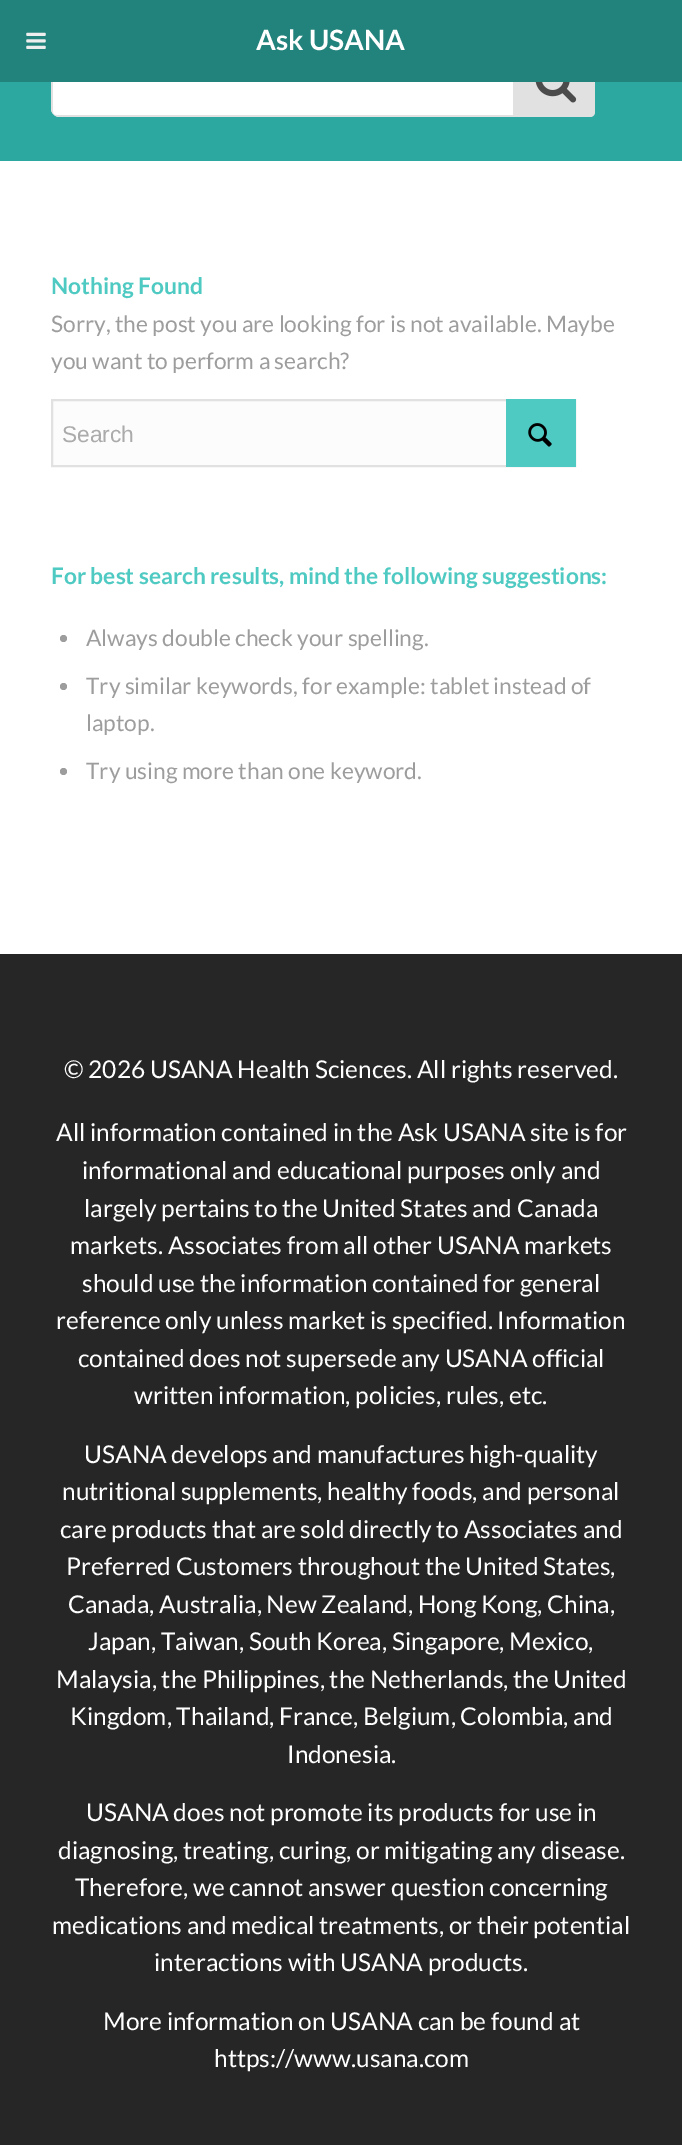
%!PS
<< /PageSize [682 2145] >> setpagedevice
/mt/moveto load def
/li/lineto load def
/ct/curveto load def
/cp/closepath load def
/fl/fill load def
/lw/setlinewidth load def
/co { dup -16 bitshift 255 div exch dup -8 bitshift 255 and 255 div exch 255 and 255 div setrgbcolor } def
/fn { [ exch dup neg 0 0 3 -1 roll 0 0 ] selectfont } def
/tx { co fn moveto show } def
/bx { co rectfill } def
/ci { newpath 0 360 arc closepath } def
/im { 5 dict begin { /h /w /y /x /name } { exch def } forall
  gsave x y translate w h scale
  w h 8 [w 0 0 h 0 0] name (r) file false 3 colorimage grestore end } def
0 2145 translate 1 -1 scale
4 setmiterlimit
0 0 682 2145 16#2CA8A0 bx
16#FFFFFF co
60 44 mt 515 44 li 515 117 li 60 117 li 55 117 51 113 51 108 ct 51 53 li 51 48 55 44 60 44 ct cp fl
16#E1E1E1 co
60 44 mt 55 44 51 48 51 53 ct 51 108 li 51 113 55 117 60 117 ct 515 117 li 515 44 li cp 56 46 mt 54 46 53 47 53 49 ct 53 112 li 53 114 54 115 56 115 ct 513 115 li 513 46 li cp eofill
515 44 mt 590 44 li 593 44 595 46 595 49 ct 595 112 li 595 115 593 117 590 117 ct 515 117 li cp fl
0 0 682 82 16#22827C bx
(media/1.raw) 26 32 20 17 im
(media/2.raw) 535 82 42 21 im
0 161 682 793 16#FFFFFF bx
53 401 453 64 16#FCFCFC bx
16#E1E1E1 co
2 lw
52 400 523 66 rectstroke
506 399 70 68 16#4ECAC2 bx
(media/3.raw) 528 423 24 24 im
16#9D9D9D co
63.5 638.5 3.5 ci fl
63.5 686.5 3.5 ci fl
63.5 771.5 3.5 ci fl
0 954 682 1191 16#262626 bx
(Ask USANA) 256 50 /Lato-Bold 28 16#FFFFFF tx
(Nothing Found) 51 294 /Lato-Bold 22.75 16#4ECAC2 tx
(Sorry, the post you are looking for is not available. Maybe) 51 332 /Lato-Regular 22.75 16#9D9D9D tx
(you want to perform a search?) 51 369 /Lato-Regular 22.75 16#9D9D9D tx
(Search) 62 442 /LiberationSans-Regular 22.75 16#ABABAB tx
(For best search results, mind the following suggestions:) 51 584 /Lato-Bold 22.75 16#4ECAC2 tx
(Always double check your spelling.) 86 646 /Lato-Regular 22.75 16#9D9D9D tx
(Try similar keywords, for example: tablet instead of) 86 694 /Lato-Regular 22.75 16#9D9D9D tx
(laptop.) 86 731 /Lato-Regular 22.75 16#9D9D9D tx
(Try using more than one keyword.) 86 779 /Lato-Regular 22.75 16#9D9D9D tx
(© 2026 USANA Health Sciences. All rights reserved.) 64 1078 /Lato-Regular 24.5 16#FFFFFF tx
(All information contained in the Ask USANA site is for) 56 1141 /Lato-Regular 24.5 16#FFFFFF tx
(informational and educational purposes only and) 82 1179 /Lato-Regular 24.5 16#FFFFFF tx
(largely pertains to the United States and Canada) 84 1217 /Lato-Regular 24.5 16#FFFFFF tx
(markets. Associates from all other USANA markets) 70 1254 /Lato-Regular 24.5 16#FFFFFF tx
(should use the information contained for general) 82 1292 /Lato-Regular 24.5 16#FFFFFF tx
(reference only unless market is specified. Information) 56 1329 /Lato-Regular 24.5 16#FFFFFF tx
(contained does not supersede any USANA official) 78 1367 /Lato-Regular 24.5 16#FFFFFF tx
(written information, policies, rules, etc.) 134 1404 /Lato-Regular 24.5 16#FFFFFF tx
(USANA develops and manufactures high-quality) 84 1463 /Lato-Regular 24.5 16#FFFFFF tx
(nutritional supplements, healthy foods, and personal) 62 1500 /Lato-Regular 24.5 16#FFFFFF tx
(care products that are sold directly to Associates and) 60 1538 /Lato-Regular 24.5 16#FFFFFF tx
(Preferred Customers throughout the United States,) 66 1575 /Lato-Regular 24.5 16#FFFFFF tx
(Canada, Australia, New Zealand, Hong Kong, China,) 68 1613 /Lato-Regular 24.5 16#FFFFFF tx
(Japan, Taiwan, South Korea, Singapore, Mexico,) 88 1650 /Lato-Regular 24.5 16#FFFFFF tx
(Malaysia, the Philippines, the Netherlands, the United) 56 1688 /Lato-Regular 24.5 16#FFFFFF tx
(Kingdom, Thailand, France, Belgium, Colombia, and) 70 1725 /Lato-Regular 24.5 16#FFFFFF tx
(Indonesia.) 287 1763 /Lato-Regular 24.5 16#FFFFFF tx
(USANA does not promote its products for use in) 86 1821 /Lato-Regular 24.5 16#FFFFFF tx
(diagnosing, treating, curing, or mitigating any disease.) 58 1859 /Lato-Regular 24.5 16#FFFFFF tx
(Therefore, we cannot answer question concerning) 75 1896 /Lato-Regular 24.5 16#FFFFFF tx
(medications and medical treatments, or their potential) 52 1934 /Lato-Regular 24.5 16#FFFFFF tx
(interactions with USANA products.) 154 1971 /Lato-Regular 24.5 16#FFFFFF tx
(More information on USANA can be found at) 103 2030 /Lato-Regular 24.5 16#FFFFFF tx
(https://www.usana.com) 214 2067 /Lato-Regular 24.5 16#FFFFFF tx
showpage
